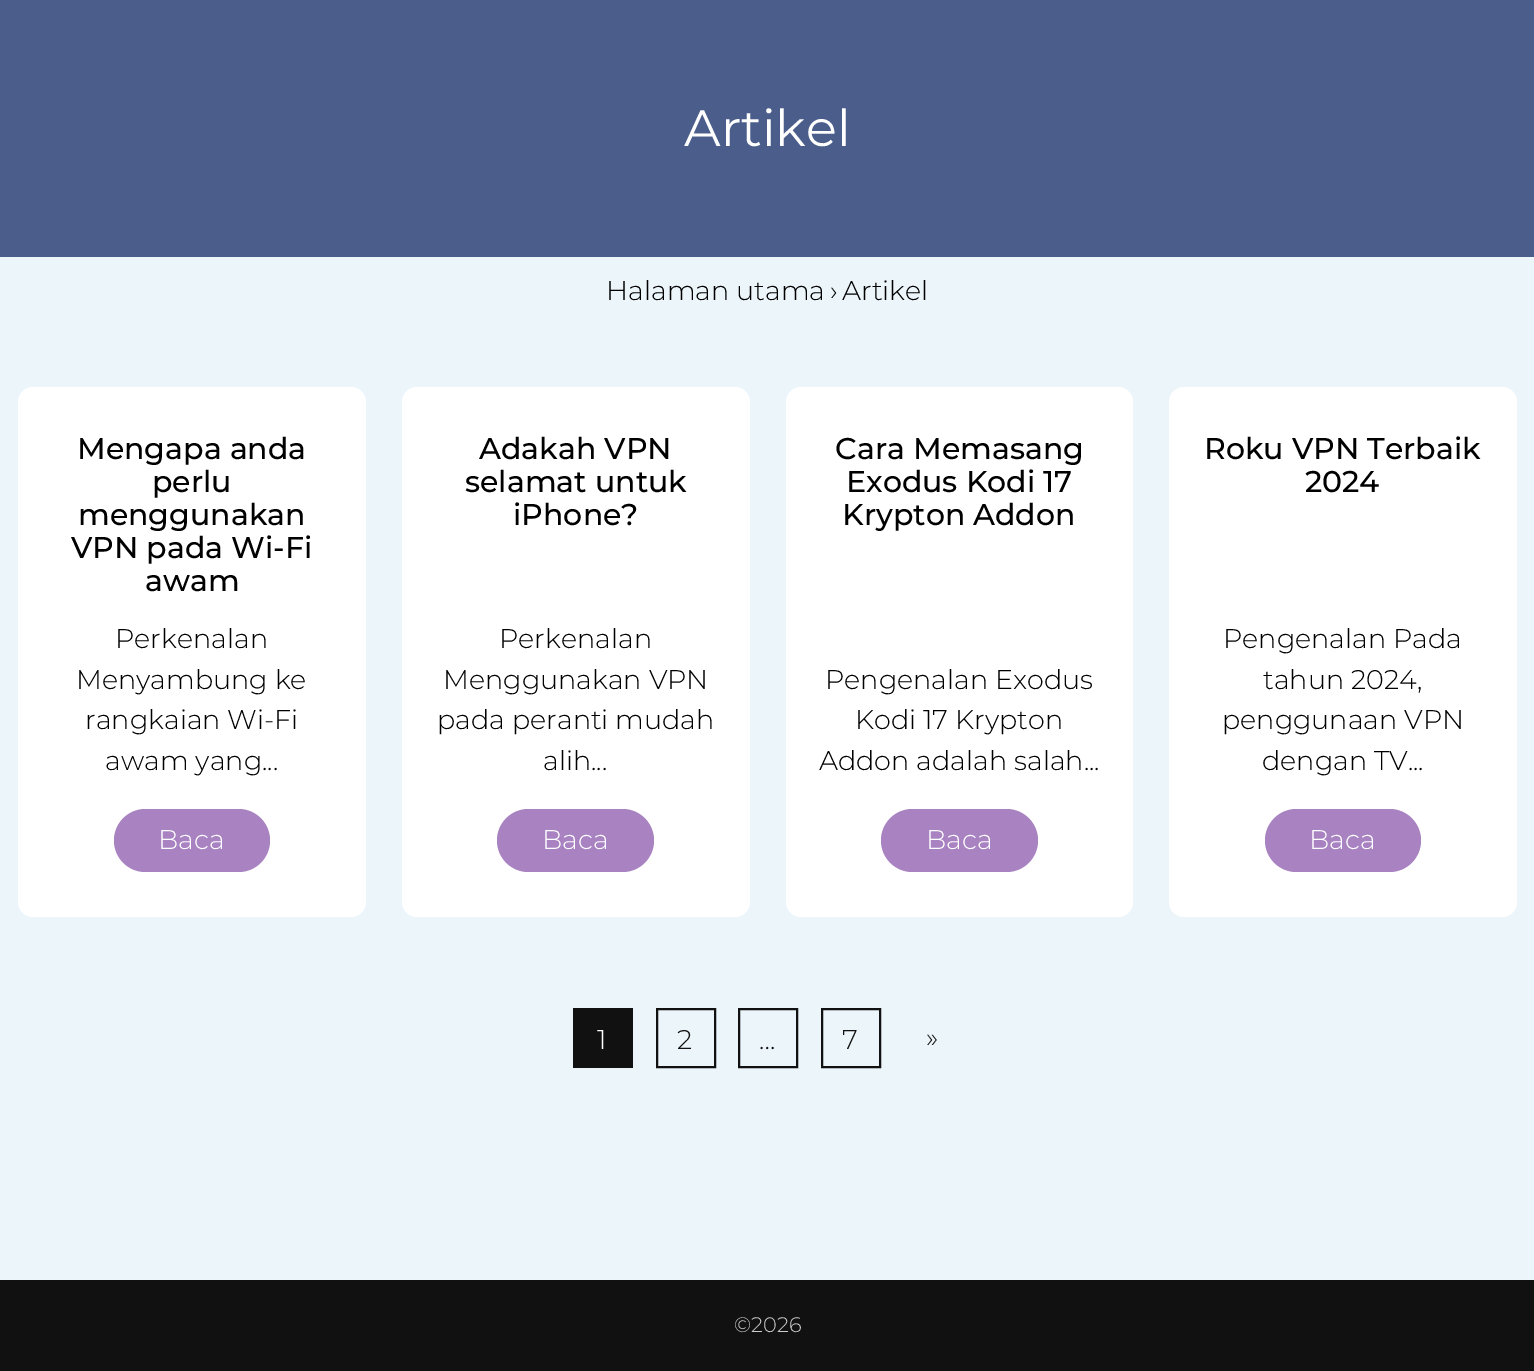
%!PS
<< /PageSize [1534 1371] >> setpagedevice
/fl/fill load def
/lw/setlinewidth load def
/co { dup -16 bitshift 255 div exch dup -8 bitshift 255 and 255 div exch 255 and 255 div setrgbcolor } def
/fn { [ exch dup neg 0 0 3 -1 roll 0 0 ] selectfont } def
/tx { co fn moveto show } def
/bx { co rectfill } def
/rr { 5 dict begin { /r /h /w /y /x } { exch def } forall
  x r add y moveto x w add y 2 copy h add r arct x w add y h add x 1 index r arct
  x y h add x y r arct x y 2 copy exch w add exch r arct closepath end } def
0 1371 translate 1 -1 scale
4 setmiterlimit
0 0 1534 1371 16#ECF5FA bx
0 0 1534 257 16#4B5D8B bx
16#FFFFFF co
18 387 348 530 15 rr fl
16#A882C1 co
114 809 156 63 31.5 rr fl
16#FFFFFF co
402 387 348 530 15 rr fl
16#A882C1 co
497 809 157 63 31.5 rr fl
16#FFFFFF co
786 387 347 530 15 rr fl
16#A882C1 co
881 809 157 63 31.5 rr fl
16#FFFFFF co
1169 387 348 530 15 rr fl
16#A882C1 co
1265 809 156 63 31.5 rr fl
573 1008 60 60 16#111111 bx
2 lw
657 1009 58 58 rectstroke
822 1009 58 58 rectstroke
739 1009 58 58 rectstroke
0 1280 1534 91 16#111111 bx
(Artikel) 684 146 /Montserrat-Regular 51 16#FFFFFF tx
(Halaman utama) 606 300 /Montserrat-Light 27 16#000000 tx
(›) 830 300 /Montserrat-Light 27 16#000000 tx
(Artikel) 842 300 /Montserrat-Light 27 16#000000 tx
(Mengapa anda) 77 459 /Montserrat-Medium 30 16#000000 tx
(perlu) 152 492 /Montserrat-Medium 30 16#000000 tx
(menggunakan) 78 525 /Montserrat-Medium 30 16#000000 tx
(VPN pada Wi-Fi) 71 558 /Montserrat-Medium 30 16#000000 tx
(awam) 145 591 /Montserrat-Medium 30 16#000000 tx
(Perkenalan) 115 648 /Montserrat-Light 27 16#000000 tx
(Menyambung ke) 76 689 /Montserrat-Light 27 16#000000 tx
(rangkaian Wi-Fi) 85 729 /Montserrat-Light 27 16#000000 tx
(awam yang...) 105 770 /Montserrat-Light 27 16#000000 tx
(Baca) 158 849 /Montserrat-Light 27 16#FFFFFF tx
(Adakah VPN) 479 459 /Montserrat-Medium 30 16#000000 tx
(selamat untuk) 465 492 /Montserrat-Medium 30 16#000000 tx
(iPhone?) 513 525 /Montserrat-Medium 30 16#000000 tx
(Perkenalan) 499 648 /Montserrat-Light 27 16#000000 tx
(Menggunakan VPN) 443 689 /Montserrat-Light 27 16#000000 tx
(pada peranti mudah) 437 729 /Montserrat-Light 27 16#000000 tx
(alih...) 543 770 /Montserrat-Light 27 16#000000 tx
(Baca) 542 849 /Montserrat-Light 27 16#FFFFFF tx
(Cara Memasang) 835 459 /Montserrat-Medium 30 16#000000 tx
(Exodus Kodi 17) 846 492 /Montserrat-Medium 30 16#000000 tx
(Krypton Addon) 842 525 /Montserrat-Medium 30 16#000000 tx
(Pengenalan Exodus) 825 689 /Montserrat-Light 27 16#000000 tx
(Kodi 17 Krypton) 855 729 /Montserrat-Light 27 16#000000 tx
(Addon adalah salah...) 819 770 /Montserrat-Light 27 16#000000 tx
(Baca) 926 849 /Montserrat-Light 27 16#FFFFFF tx
(Roku VPN Terbaik) 1204 459 /Montserrat-Medium 30 16#000000 tx
(2024) 1305 492 /Montserrat-Medium 30 16#000000 tx
(Pengenalan Pada) 1223 648 /Montserrat-Light 27 16#000000 tx
(tahun 2024,) 1263 689 /Montserrat-Light 27 16#000000 tx
(penggunaan VPN) 1222 729 /Montserrat-Light 27 16#000000 tx
(dengan TV...) 1262 770 /Montserrat-Light 27 16#000000 tx
(Baca) 1309 849 /Montserrat-Light 27 16#FFFFFF tx
(1) 597 1049 /Montserrat-Light 27 16#FFFFFF tx
(2) 677 1049 /Montserrat-Light 27 16#111111 tx
(7) 842 1049 /Montserrat-Light 27 16#111111 tx
(») 926 1047 /Montserrat-Light 27 16#111111 tx
(…) 759 1049 /Montserrat-Light 27 16#111111 tx
(©2026) 734 1332 /Montserrat-Light 21 16#CCCCCC tx
showpage
